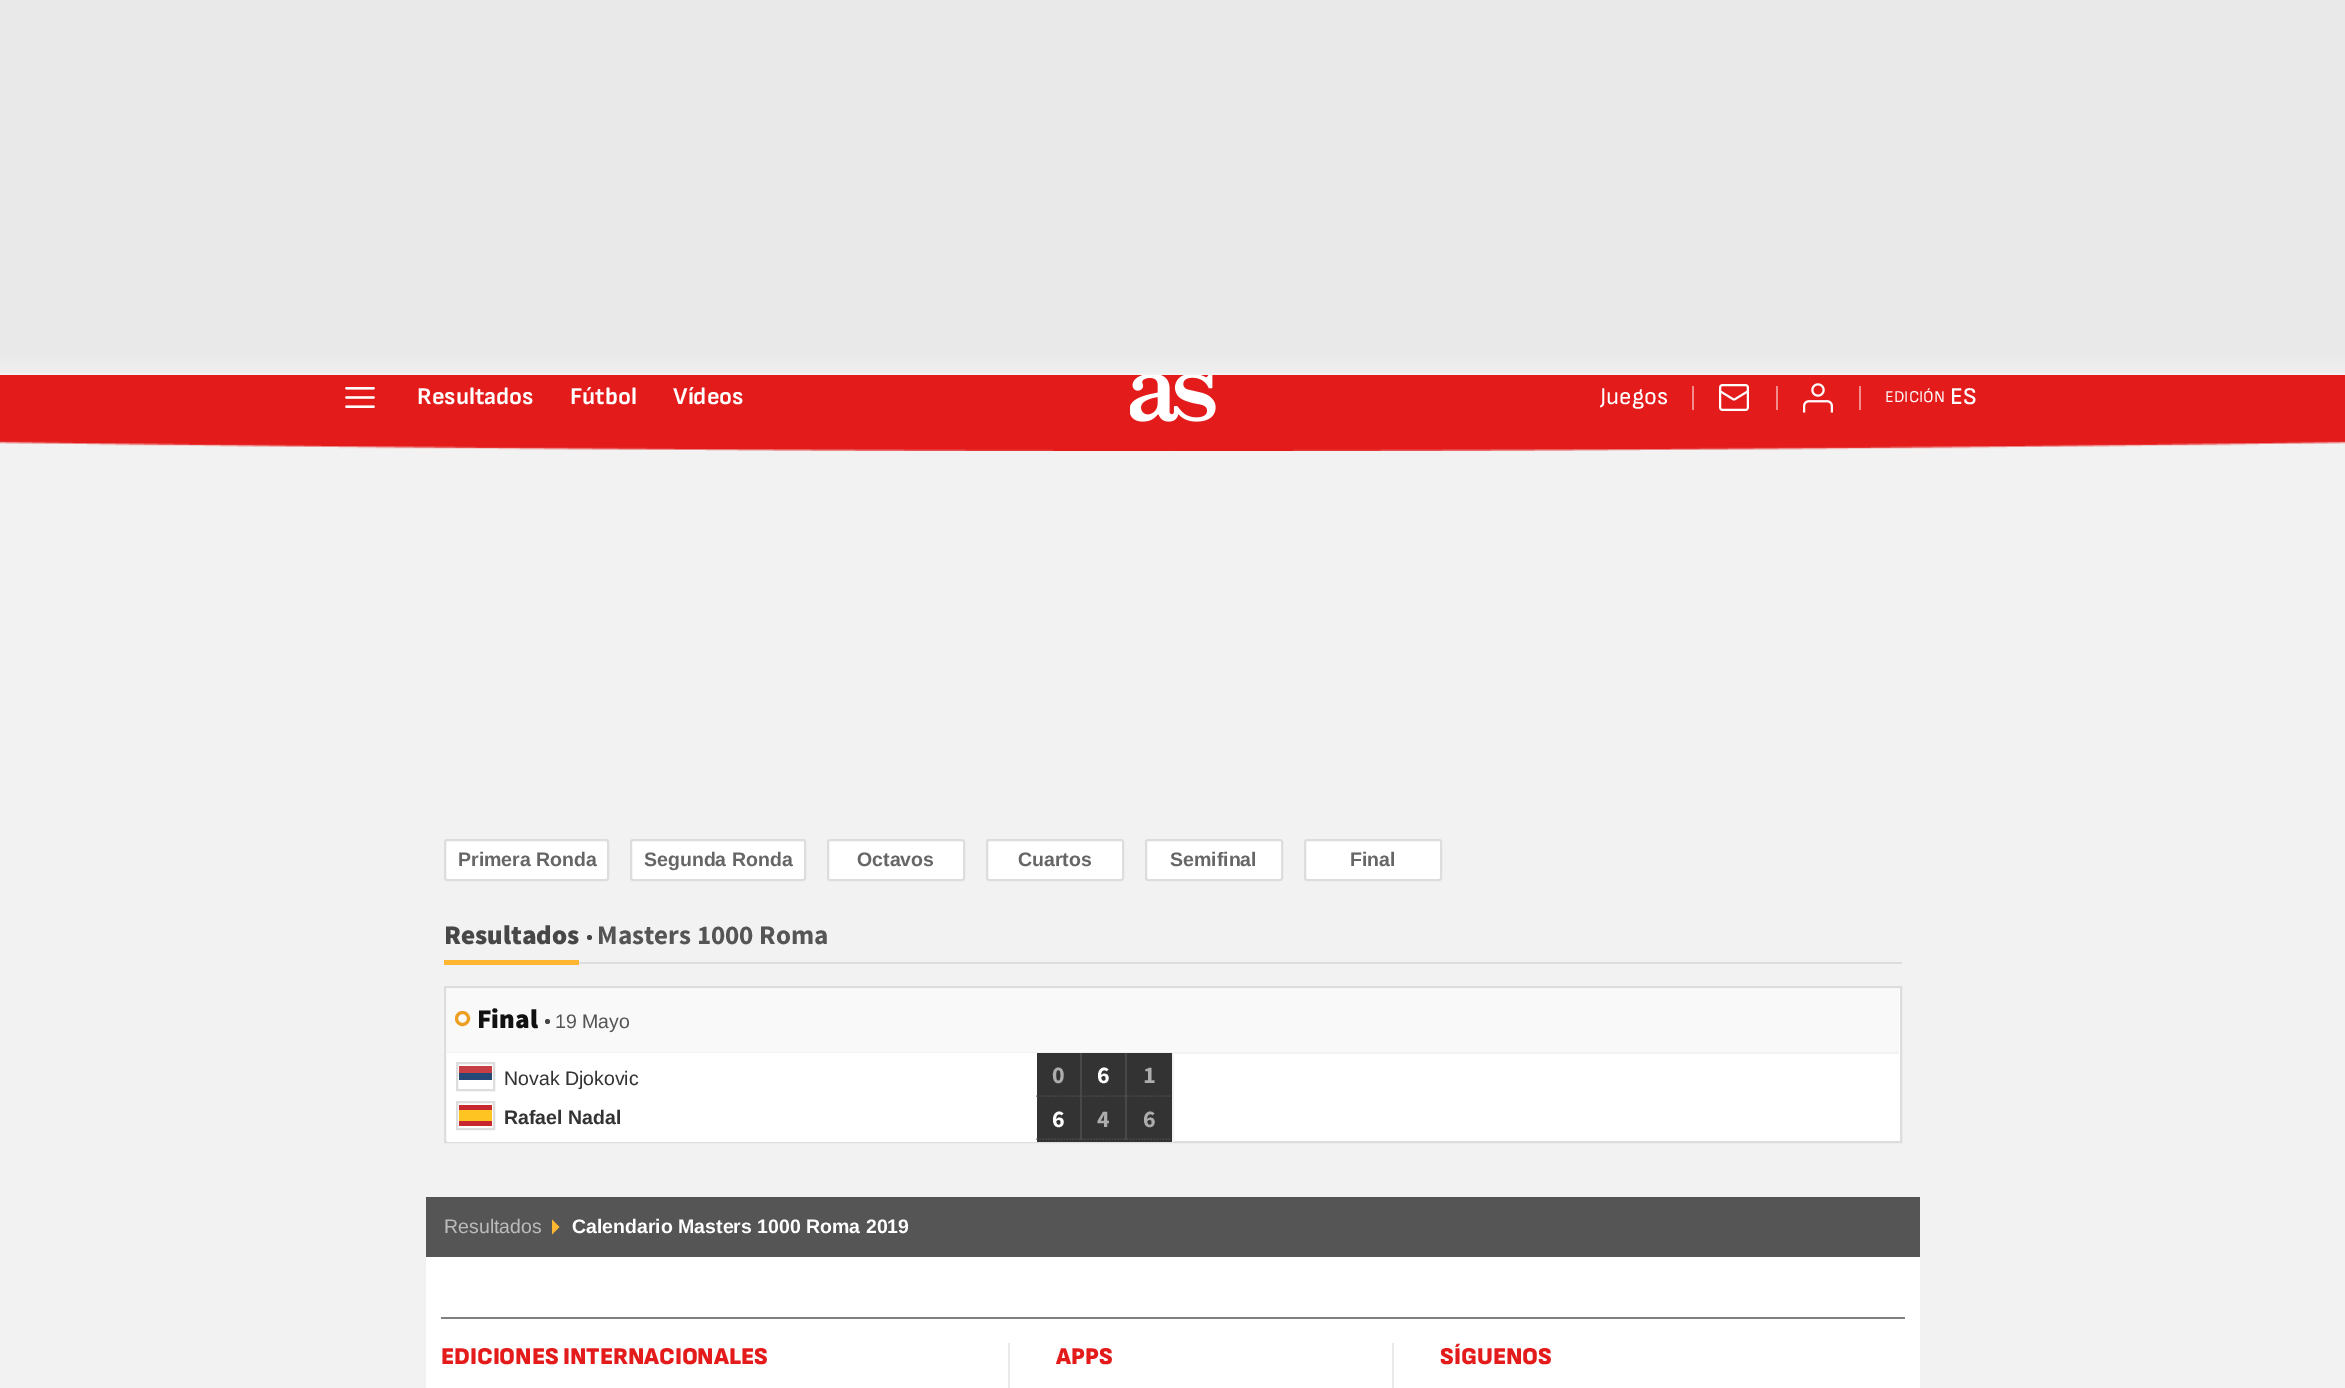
%!PS
<< /PageSize [2345 1388] >> setpagedevice
/mt/moveto load def
/li/lineto load def
/cp/closepath load def
/fl/fill load def
/st/stroke load def
/gs/gsave load def
/gr/grestore load def
/lw/setlinewidth load def
/co { dup -16 bitshift 255 div exch dup -8 bitshift 255 and 255 div exch 255 and 255 div setrgbcolor } def
/fn { [ exch dup neg 0 0 3 -1 roll 0 0 ] selectfont } def
/tx { co fn moveto show } def
/bx { co rectfill } def
/ci { newpath 0 360 arc closepath } def
/rr { 5 dict begin { /r /h /w /y /x } { exch def } forall
  x r add y moveto x w add y 2 copy h add r arct x w add y h add x 1 index r arct
  x y h add x y r arct x y 2 copy exch w add exch r arct closepath end } def
/im { 5 dict begin { /h /w /y /x /name } { exch def } forall
  gsave x y translate w h scale
  w h 8 [w 0 0 h 0 0] name (r) file false 3 colorimage grestore end } def
0 1388 translate 1 -1 scale
4 setmiterlimit
0 0 2345 1388 16#F2F2F2 bx
gs 0 0 mt 2345 0 li 2345 373 li 0 373 li cp clip newpath
<< /ShadingType 2 /ColorSpace /DeviceRGB /Coords [1173 375 1173 0] /Extend [true true] /Function << /FunctionType 3 /Domain [0 1] /Functions [<< /FunctionType 2 /Domain [0 1] /C0 [.941 .941 .941] /C1 [.914 .914 .914] /N 1 >> << /FunctionType 2 /Domain [0 1] /C0 [.914 .914 .914] /C1 [.914 .914 .914] /N 1 >>] /Bounds [.06] /Encode [0 1 0 1] >> >> shfill gr
(media/1.raw) 0 375 2345 76 im
(media/2.raw) 345 387 30 21 im
(media/3.raw) 1130 375 86 47 im
1692 386 2 24 16#F28D8D bx
(media/4.raw) 1719 384 30 27 im
1776 386 2 24 16#F28D8D bx
(media/5.raw) 1803 383 30 30 im
1859 386 2 24 16#F28D8D bx
16#FFFFFF co
445 840 163 40 2 rr gs fl gr
16#DDDDDD co
2 lw
st
16#FFFFFF co
631 840 174 40 2 rr gs fl gr
16#DDDDDD co
st
16#FFFFFF co
828 840 136 40 2 rr gs fl gr
16#DDDDDD co
st
16#FFFFFF co
987 840 136 40 2 rr gs fl gr
16#DDDDDD co
st
16#FFFFFF co
1146 840 136 40 2 rr gs fl gr
16#DDDDDD co
st
16#FFFFFF co
1305 840 136 40 2 rr gs fl gr
16#DDDDDD co
st
579 962 1323 2 16#DDDDDD bx
444 960 135 5 16#FFB632 bx
16#474747 co
589.5 937.5 2.5 ci fl
16#FFFFFF co
445 987 mt 1901 987 li 1901 1142 li 445 1142 li cp gs fl gr
16#DDDDDD co
st
447 989 1452 63 16#F9F9F9 bx
1172 1053 2 89 16#F2F2F2 bx
447 1052 1452 2 16#F2F2F2 bx
16#EC9F23 co
3 lw
462.5 1018.5 6 ci st
16#474747 co
547.5 1021.5 2.5 ci fl
447 1053 590 89 16#FFFFFF bx
16#DDDDDD co
2 lw
457 1063 37 27 rectstroke
459 1073 33 7 16#254877 bx
459 1066 33 7 16#C73F44 bx
16#DDDDDD co
457 1102 37 27 rectstroke
459 1105 33 21 16#C7272E bx
459 1110 33 11 16#FDC422 bx
1037 1053 135 89 16#333333 bx
1080 1053 2 87 16#484848 bx
1.5 lw
[1.5 1.5] 0 setdash
1036.5 1096 mt 1081.5 1096 li st
1125 1053 2 87 16#484848 bx
1081.5 1096 mt 1126.5 1096 li st
1126.5 1096 mt 1171.5 1096 li st
1036.5 1139 mt 1081.5 1139 li st
1081.5 1139 mt 1126.5 1139 li st
1126.5 1139 mt 1171.5 1139 li st
426 1197 1494 60 16#555555 bx
16#FFB632 co
552 1234.5 mt 552 1219.5 li 559.5 1227 li cp fl
426 1257 1494 131 16#FFFFFF bx
441 1317 1464 2 16#808080 bx
1008 1343 2 45 16#E9E9E9 bx
1392 1343 2 45 16#E9E9E9 bx
(Resultados) 417 404 /SofiaSans-Bold 24 16#FFFFFF tx
(Fútbol) 570 404 /SofiaSans-Bold 24 16#FFFFFF tx
(Vídeos) 673 404 /SofiaSans-Bold 24 16#FFFFFF tx
(Juegos) 1600 404 /SofiaSans-Regular 24 16#FFFFFF tx
(EDICIÓN) 1885 402 /SofiaSans-Regular 16.5 16#FFFFFF tx
(ES) 1950 404 /SofiaSans-SemiBold 24 16#FFFFFF tx
(Primera Ronda) 458 866 /LiberationSans-Bold 19.5 16#666666 tx
(Segunda Ronda) 644 866 /LiberationSans-Bold 19.5 16#666666 tx
(Octavos) 857 866 /LiberationSans-Bold 19.5 16#666666 tx
(Cuartos) 1018 866 /LiberationSans-Bold 19.5 16#666666 tx
(Semifinal) 1170 866 /LiberationSans-Bold 19.5 16#666666 tx
(Final) 1350 866 /LiberationSans-Bold 19.5 16#666666 tx
(Resultados) 444 944 /SourceSansPro-Black 27 16#474747 tx
(Masters 1000 Roma) 597 944 /SourceSansPro-Bold 27 16#555555 tx
(Final) 477 1028 /SourceSansPro-Black 27 16#111111 tx
(19 Mayo) 555 1028 /LiberationSans-Regular 19.5 16#555555 tx
(Novak Djokovic) 504 1085 /LiberationSans-Regular 19.5 16#333333 tx
(Rafael Nadal) 504 1124 /LiberationSans-Bold 19.5 16#333333 tx
(0) 1052 1083 /SourceSansPro-Bold 24 16#ADADAD tx
(6) 1097 1083 /SourceSansPro-Bold 24 16#FFFFFF tx
(1) 1143 1083 /SourceSansPro-Bold 24 16#ADADAD tx
(6) 1052 1127 /SourceSansPro-Bold 24 16#FFFFFF tx
(4) 1097 1127 /SourceSansPro-Bold 24 16#ADADAD tx
(6) 1143 1127 /SourceSansPro-Bold 24 16#ADADAD tx
(Resultados) 444 1233 /LiberationSans-Regular 19.5 16#BBBBBB tx
(Calendario Masters 1000 Roma 2019) 572 1233 /LiberationSans-Bold 19.5 16#FFFFFF tx
(EDICIONES INTERNACIONALES) 441 1364 /SofiaSans-Black 24 16#E41B1B tx
(APPS) 1056 1364 /SofiaSans-Black 24 16#E41B1B tx
(SÍGUENOS) 1440 1364 /SofiaSans-Black 24 16#E41B1B tx
showpage
